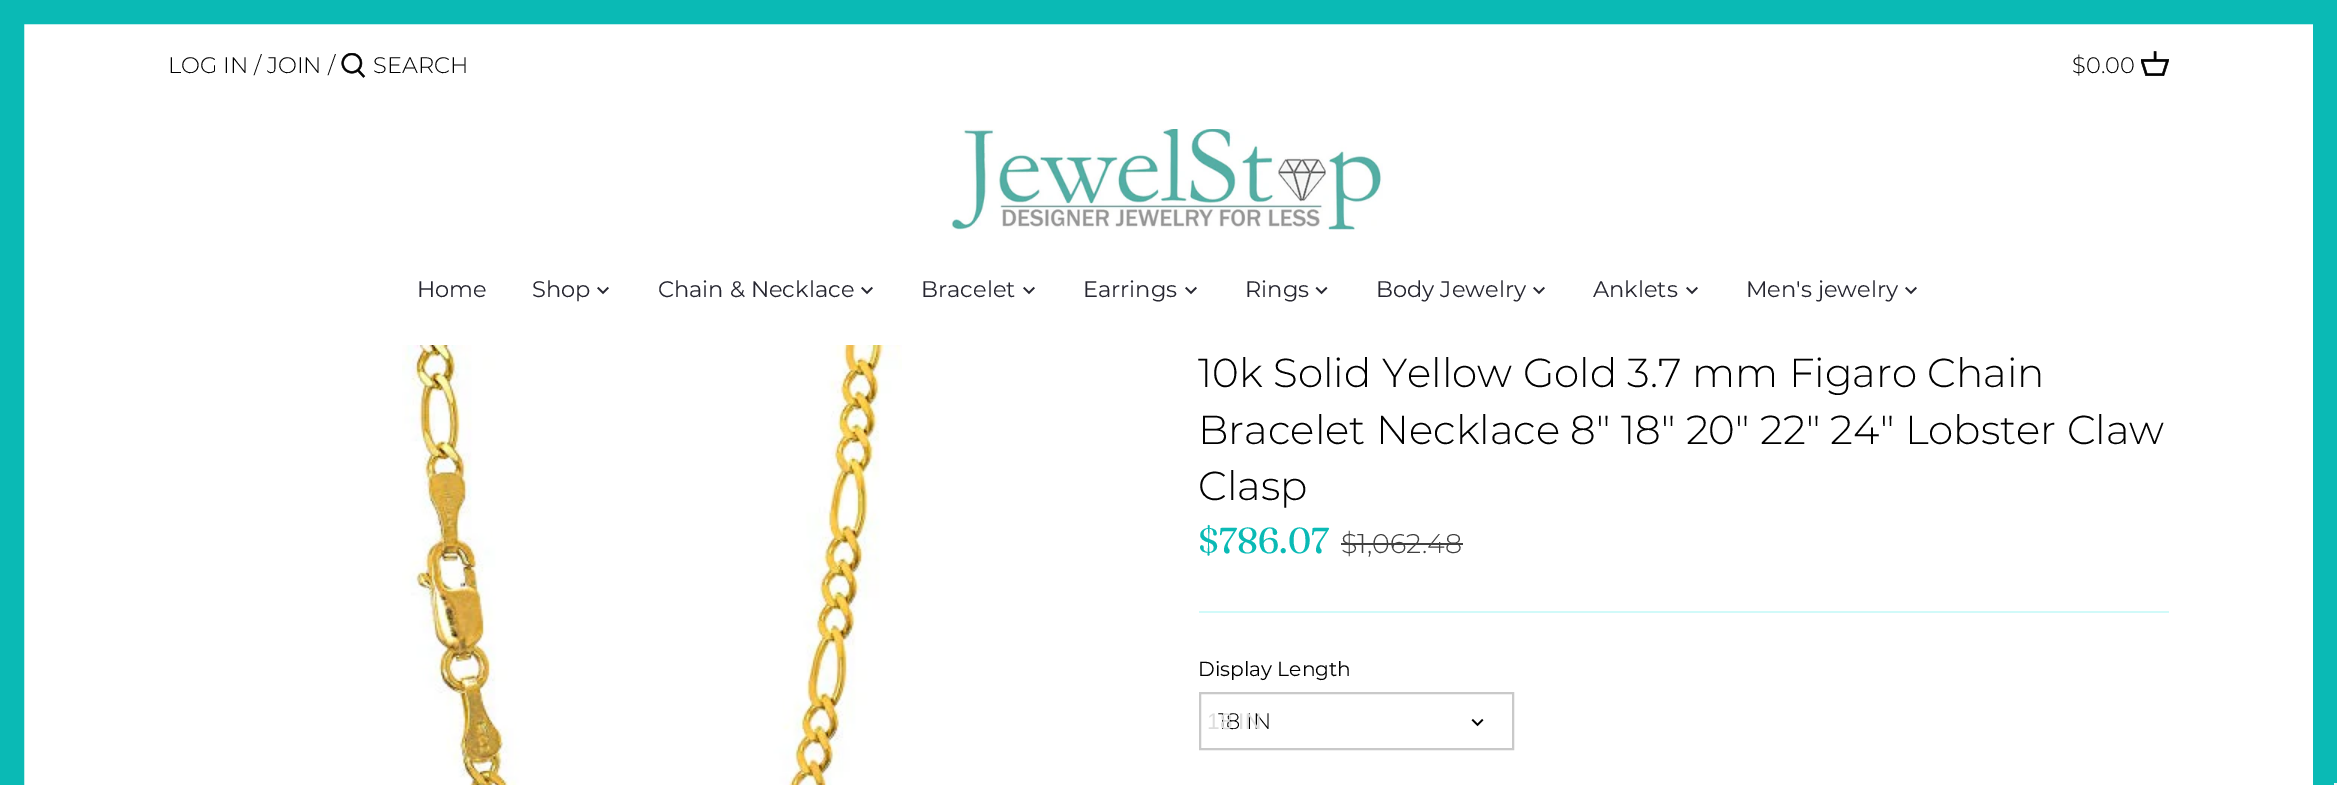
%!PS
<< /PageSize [2337 785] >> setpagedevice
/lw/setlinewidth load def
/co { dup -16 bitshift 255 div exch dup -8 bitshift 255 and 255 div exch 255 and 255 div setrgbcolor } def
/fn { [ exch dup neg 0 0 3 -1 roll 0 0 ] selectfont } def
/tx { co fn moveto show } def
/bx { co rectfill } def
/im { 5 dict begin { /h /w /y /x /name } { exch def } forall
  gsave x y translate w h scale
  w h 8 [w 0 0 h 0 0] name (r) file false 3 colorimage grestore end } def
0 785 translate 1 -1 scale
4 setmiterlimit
0 0 2337 785 16#FFFFFF bx
16#0ABAB5 co
24 lw
12 12 2313 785 rectstroke
(media/1.raw) 341 53 25 25 im
(media/2.raw) 2141 51 28 25 im
(media/3.raw) 951 129 432 101 im
(media/4.raw) 597 286 12 9 im
(media/4.raw) 861 286 12 9 im
(media/4.raw) 1023 286 12 9 im
(media/4.raw) 1185 286 12 9 im
(media/5.raw) 1315 286 13 9 im
(media/4.raw) 1533 286 12 9 im
(media/4.raw) 1686 286 12 9 im
(media/4.raw) 1905 286 12 9 im
(media/6.raw) 402 345 500 440 im
1199 611 970 2 16#D1FAF9 bx
1341 543 122 2 16#404040 bx
16#C9C9C9 co
2 lw
1200 693 313 56 rectstroke
(media/7.raw) 1471 718 13 9 im
2334 783 3 2 16#F5F5F5 bx
(LOG IN / JOIN /) 168 73 /Montserrat-Light 22.5 16#000000 tx
(SEARCH) 373 73 /Montserrat-Light 22.5 16#000000 tx
($0.00) 2072 73 /Montserrat-Light 22.5 16#000000 tx
(Home) 417 297 /Montserrat-Regular 22.5 16#262630 tx
(Shop) 532 297 /Montserrat-Regular 22.5 16#262630 tx
(Chain & Necklace) 658 297 /Montserrat-Regular 22.5 16#262630 tx
(Bracelet) 921 297 /Montserrat-Regular 22.5 16#262630 tx
(Earrings) 1083 297 /Montserrat-Regular 22.5 16#262630 tx
(Rings) 1245 297 /Montserrat-Regular 22.5 16#262630 tx
(Body Jewelry) 1376 297 /Montserrat-Regular 22.5 16#262630 tx
(Anklets) 1593 297 /Montserrat-Regular 22.5 16#262630 tx
(Men's jewelry) 1746 297 /Montserrat-Regular 22.5 16#262630 tx
(10k Solid Yellow Gold 3.7 mm Figaro Chain) 1198 387 /Montserrat-Light 40.5 16#000000 tx
(Bracelet Necklace 8" 18" 20" 22" 24" Lobster Claw) 1198 444 /Montserrat-Light 40.5 16#000000 tx
(Clasp) 1198 500 /Montserrat-Light 40.5 16#000000 tx
($786.07) 1198 553 /Fraunces-Regular 36 16#0ABAB5 tx
($1,062.48) 1341 553 /Montserrat-Light 27 16#404040 tx
(Display Length) 1198 676 /Montserrat-Regular 20.25 16#000000 tx
(18 IN) 1218 729 /Montserrat-Light 22.5 16#000000 tx
(18 IN) 1207 729 /LiberationSans-Regular 22.5 16#DDDDDD tx
showpage
